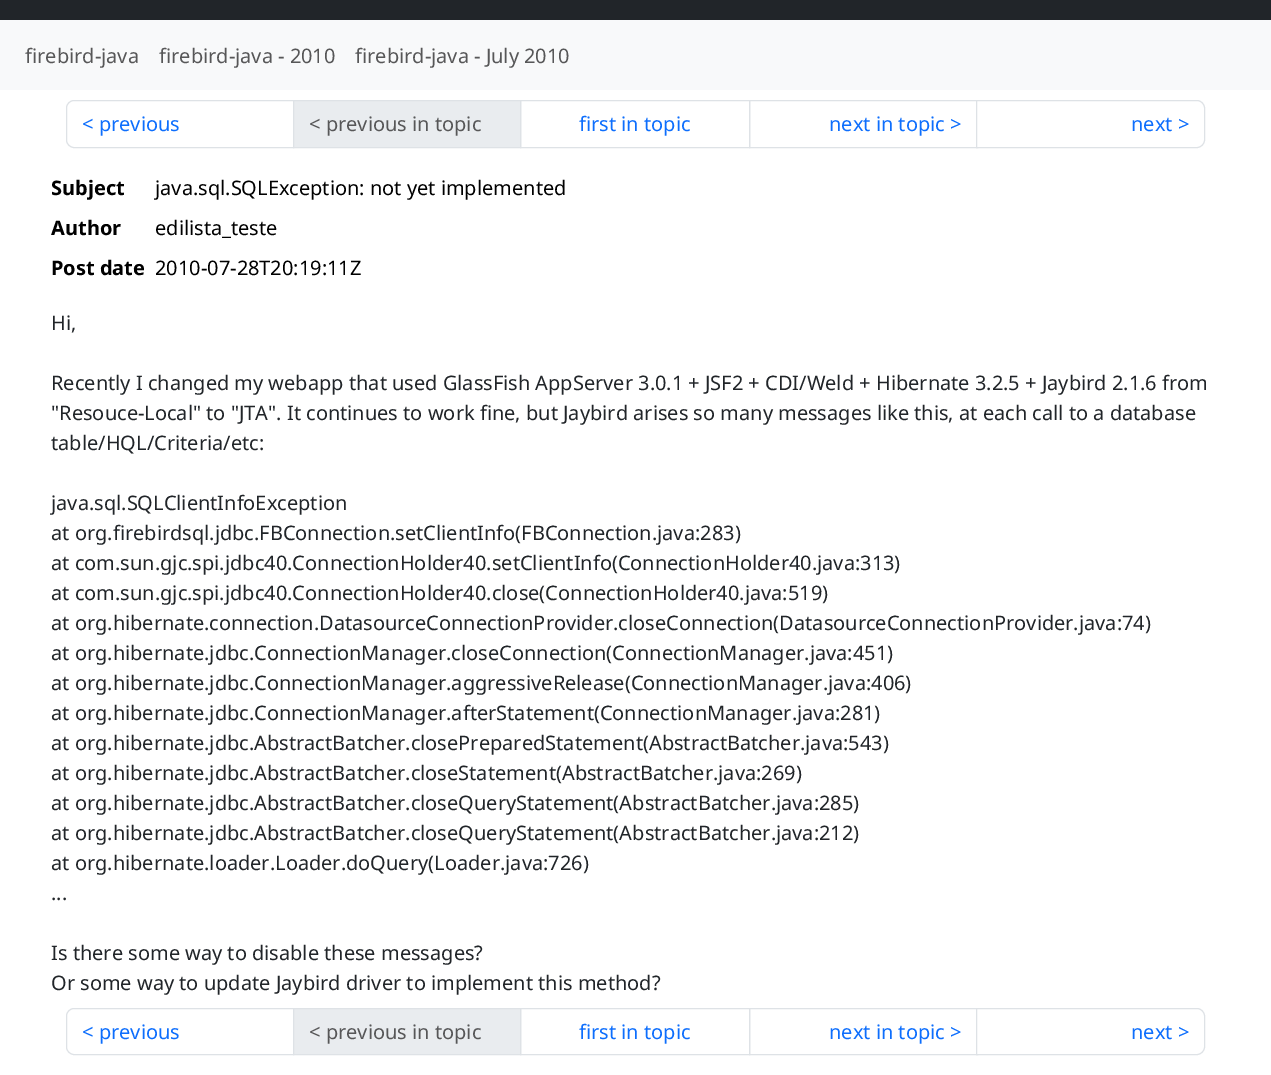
%!PS
<< /PageSize [1271 1075] >> setpagedevice
/mt/moveto load def
/li/lineto load def
/ct/curveto load def
/cp/closepath load def
/fl/fill load def
/st/stroke load def
/gs/gsave load def
/gr/grestore load def
/co { dup -16 bitshift 255 div exch dup -8 bitshift 255 and 255 div exch 255 and 255 div setrgbcolor } def
/fn { [ exch dup neg 0 0 3 -1 roll 0 0 ] selectfont } def
/tx { co fn moveto show } def
/bx { co rectfill } def
0 1075 translate 1 -1 scale
4 setmiterlimit
0 0 1271 1075 16#FFFFFF bx
0 0 1271 20 16#212529 bx
0 20 1271 70 16#F8F9FA bx
16#DEE2E6 co
74 100.5 mt 293.5 100.5 li 293.5 147.5 li 74 147.5 li 70 147.5 66.5 144 66.5 140 ct 66.5 108 li 66.5 104 70 100.5 74 100.5 ct cp st
16#E9ECEF co
293.5 100.5 mt 520.5 100.5 li 520.5 147.5 li 293.5 147.5 li cp gs fl gr
16#DEE2E6 co
st
520.5 100.5 229 47 rectstroke
749.5 100.5 228 47 rectstroke
16#FFFFFF co
976.5 100.5 mt 1197 100.5 li 1201 100.5 1204.5 104 1204.5 108 ct 1204.5 140 li 1204.5 144 1201 147.5 1197 147.5 ct 976.5 147.5 li cp gs fl gr
16#DEE2E6 co
st
74 1008.5 mt 293.5 1008.5 li 293.5 1054.5 li 74 1054.5 li 70 1054.5 66.5 1051 66.5 1047 ct 66.5 1016 li 66.5 1012 70 1008.5 74 1008.5 ct cp st
16#E9ECEF co
293.5 1008.5 mt 520.5 1008.5 li 520.5 1054.5 li 293.5 1054.5 li cp gs fl gr
16#DEE2E6 co
st
520.5 1008.5 229 46 rectstroke
749.5 1008.5 228 46 rectstroke
16#FFFFFF co
976.5 1008.5 mt 1197 1008.5 li 1201 1008.5 1204.5 1012 1204.5 1016 ct 1204.5 1047 li 1204.5 1051 1201 1054.5 1197 1054.5 ct 976.5 1054.5 li cp gs fl gr
16#DEE2E6 co
st
(firebird-java) 25 63 /NotoSans-Regular 20 16#575758 tx
(firebird-java - 2010) 159 63 /NotoSans-Regular 20 16#575758 tx
(firebird-java - July 2010) 355 63 /NotoSans-Regular 20 16#575758 tx
(< previous) 82 131 /NotoSans-Regular 20 16#0D6EFD tx
(< previous in topic) 309 131 /NotoSans-Regular 20 16#575758 tx
(first in topic) 579 131 /NotoSans-Regular 20 16#0D6EFD tx
(next in topic >) 829 131 /NotoSans-Regular 20 16#0D6EFD tx
(next >) 1131 131 /NotoSans-Regular 20 16#0D6EFD tx
(Subject) 51 195 /NotoSans-Bold 20 16#000000 tx
(java.sql.SQLException: not yet implemented) 155 195 /NotoSans-Regular 20 16#000000 tx
(Author) 51 235 /NotoSans-Bold 20 16#000000 tx
(edilista_teste) 155 235 /NotoSans-Regular 20 16#000000 tx
(Post date) 51 275 /NotoSans-Bold 20 16#000000 tx
(2010-07-28T20:19:11Z) 155 275 /NotoSans-Regular 20 16#000000 tx
(Hi,) 51 330 /NotoSans-Regular 20 16#212529 tx
(Recently I changed my webapp that used GlassFish AppServer 3.0.1 + JSF2 + CDI/Weld + Hibernate 3.2.5 + Jaybird 2.1.6 from) 51 390 /NotoSans-Regular 20 16#212529 tx
("Resouce-Local" to "JTA". It continues to work fine, but Jaybird arises so many messages like this, at each call to a database) 51 420 /NotoSans-Regular 20 16#212529 tx
(table/HQL/Criteria/etc:) 51 450 /NotoSans-Regular 20 16#212529 tx
(java.sql.SQLClientInfoException) 51 510 /NotoSans-Regular 20 16#212529 tx
(at org.firebirdsql.jdbc.FBConnection.setClientInfo\(FBConnection.java:283\)) 51 540 /NotoSans-Regular 20 16#212529 tx
(at com.sun.gjc.spi.jdbc40.ConnectionHolder40.setClientInfo\(ConnectionHolder40.java:313\)) 51 570 /NotoSans-Regular 20 16#212529 tx
(at com.sun.gjc.spi.jdbc40.ConnectionHolder40.close\(ConnectionHolder40.java:519\)) 51 600 /NotoSans-Regular 20 16#212529 tx
(at org.hibernate.connection.DatasourceConnectionProvider.closeConnection\(DatasourceConnectionProvider.java:74\)) 51 630 /NotoSans-Regular 20 16#212529 tx
(at org.hibernate.jdbc.ConnectionManager.closeConnection\(ConnectionManager.java:451\)) 51 660 /NotoSans-Regular 20 16#212529 tx
(at org.hibernate.jdbc.ConnectionManager.aggressiveRelease\(ConnectionManager.java:406\)) 51 690 /NotoSans-Regular 20 16#212529 tx
(at org.hibernate.jdbc.ConnectionManager.afterStatement\(ConnectionManager.java:281\)) 51 720 /NotoSans-Regular 20 16#212529 tx
(at org.hibernate.jdbc.AbstractBatcher.closePreparedStatement\(AbstractBatcher.java:543\)) 51 750 /NotoSans-Regular 20 16#212529 tx
(at org.hibernate.jdbc.AbstractBatcher.closeStatement\(AbstractBatcher.java:269\)) 51 780 /NotoSans-Regular 20 16#212529 tx
(at org.hibernate.jdbc.AbstractBatcher.closeQueryStatement\(AbstractBatcher.java:285\)) 51 810 /NotoSans-Regular 20 16#212529 tx
(at org.hibernate.jdbc.AbstractBatcher.closeQueryStatement\(AbstractBatcher.java:212\)) 51 840 /NotoSans-Regular 20 16#212529 tx
(at org.hibernate.loader.Loader.doQuery\(Loader.java:726\)) 51 870 /NotoSans-Regular 20 16#212529 tx
(...) 51 900 /NotoSans-Regular 20 16#212529 tx
(Is there some way to disable these messages?) 51 960 /NotoSans-Regular 20 16#212529 tx
(Or some way to update Jaybird driver to implement this method?) 51 990 /NotoSans-Regular 20 16#212529 tx
(< previous) 82 1039 /NotoSans-Regular 20 16#0D6EFD tx
(< previous in topic) 309 1039 /NotoSans-Regular 20 16#575758 tx
(first in topic) 579 1039 /NotoSans-Regular 20 16#0D6EFD tx
(next in topic >) 829 1039 /NotoSans-Regular 20 16#0D6EFD tx
(next >) 1131 1039 /NotoSans-Regular 20 16#0D6EFD tx
showpage
